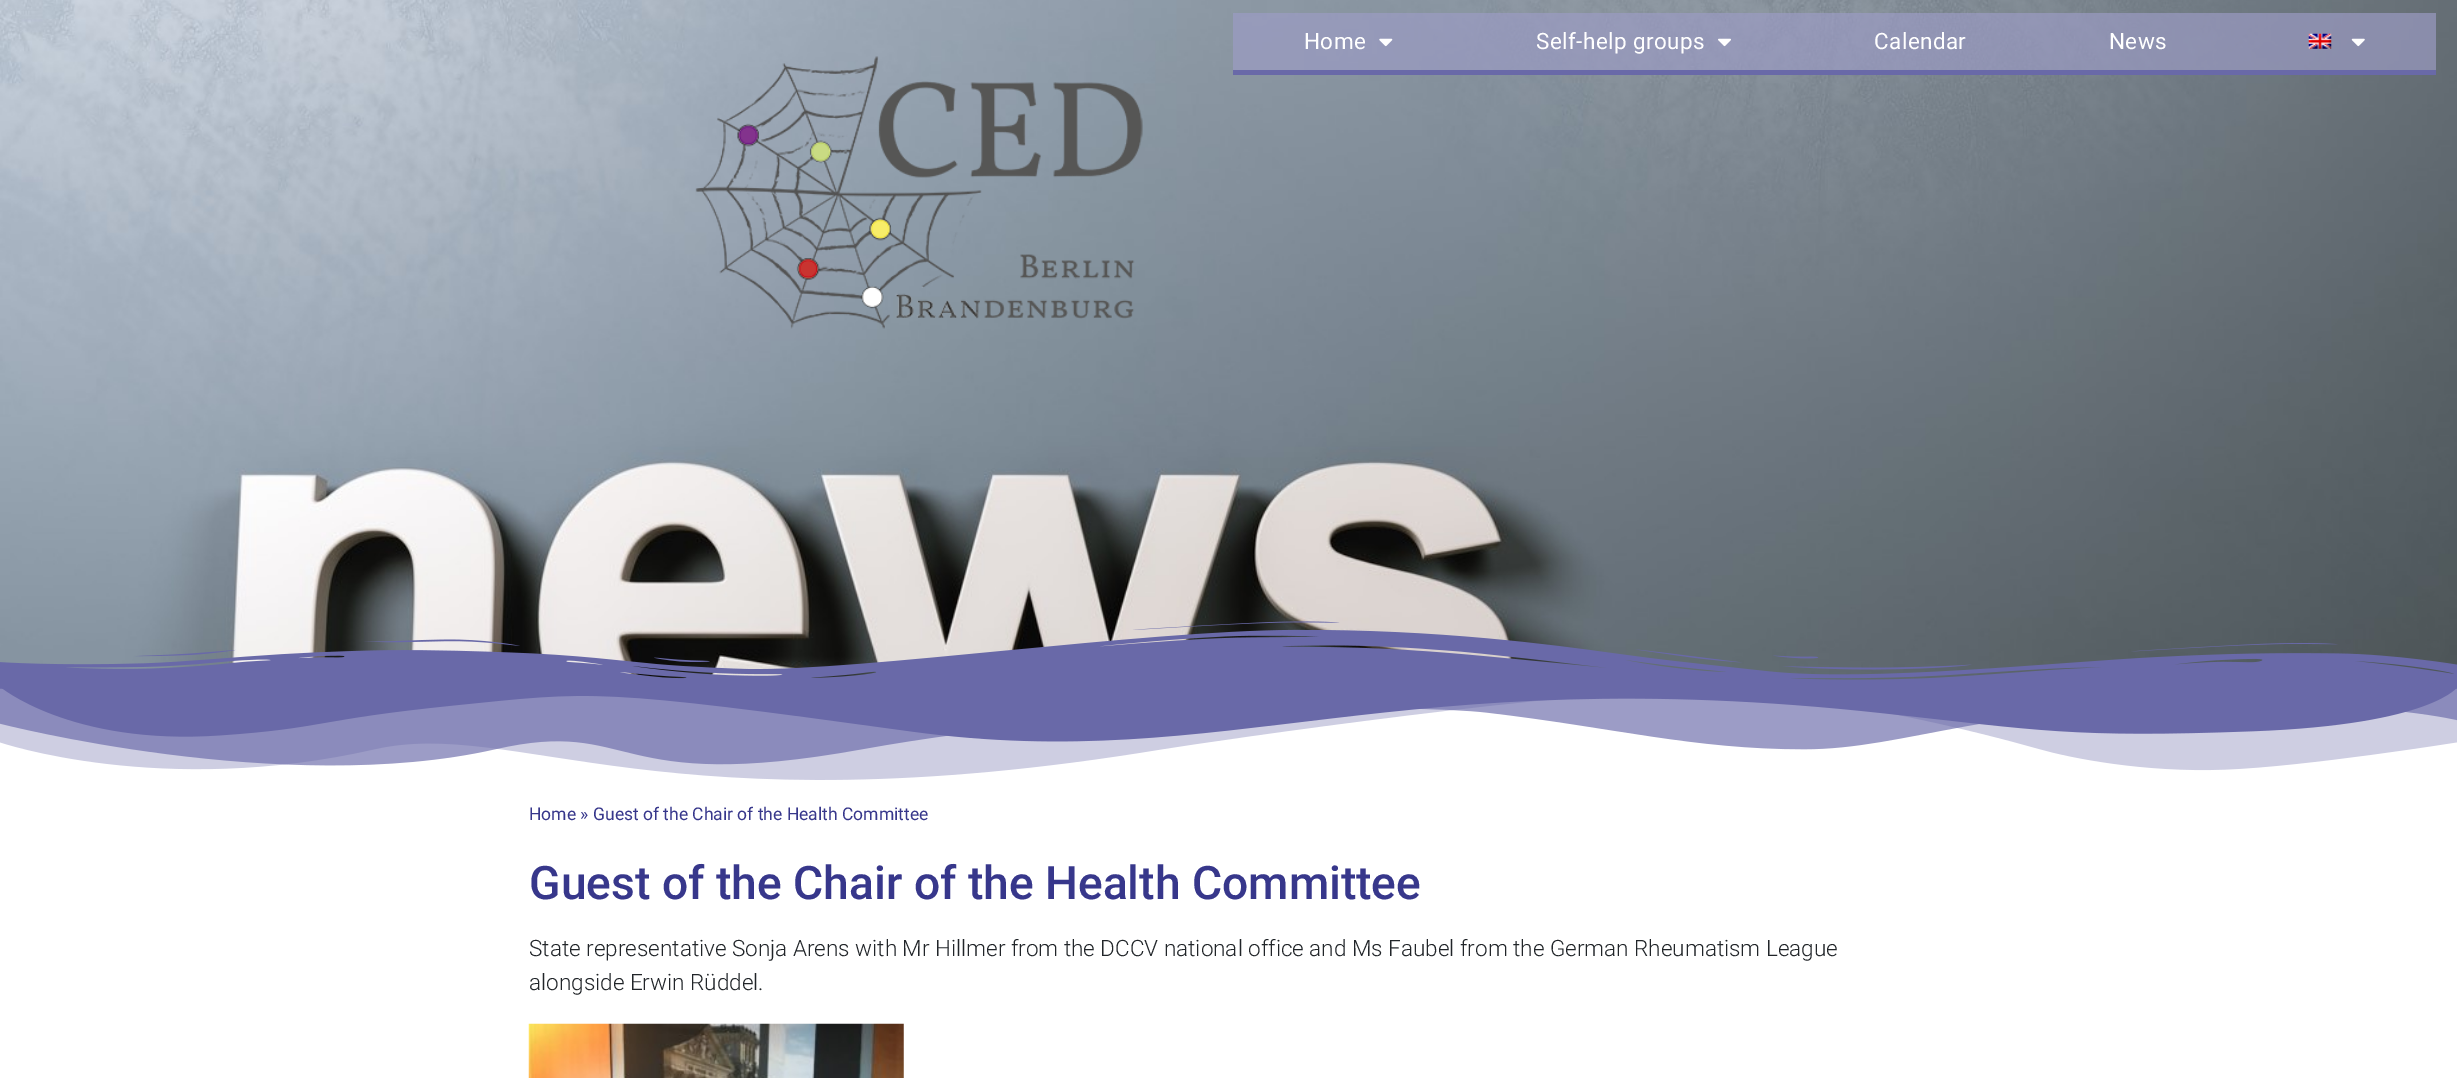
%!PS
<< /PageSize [2457 1078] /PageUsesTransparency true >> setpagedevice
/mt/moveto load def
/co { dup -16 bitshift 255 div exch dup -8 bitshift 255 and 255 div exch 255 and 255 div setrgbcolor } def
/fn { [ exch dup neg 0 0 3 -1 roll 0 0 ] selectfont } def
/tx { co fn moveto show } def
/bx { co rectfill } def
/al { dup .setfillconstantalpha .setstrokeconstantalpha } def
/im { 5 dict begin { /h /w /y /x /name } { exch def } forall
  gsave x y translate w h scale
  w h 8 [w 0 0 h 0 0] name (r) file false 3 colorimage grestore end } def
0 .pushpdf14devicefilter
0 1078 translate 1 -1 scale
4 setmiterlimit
0 0 2457 1078 16#FFFFFF bx
(media/1.raw) 0 0 2457 680 im
0.67 al
1233 13 1203 57 16#9C9CC5 bx
1 al
1233 70 1203 5 16#6969A8 bx
(media/2.raw) 1379 38 14 9 im
(media/3.raw) 1718 38 13 9 im
(media/4.raw) 2308 33 24 16 im
(media/5.raw) 2351 38 14 9 im
(media/6.raw) 695 56 448 273 im
(media/7.raw) 0 621 2457 68 im
(media/8.raw) 0 688 2457 92 im
(media/9.raw) 528 1023 376 55 im
/Roboto-Regular 22.5 fn
16#FFFFFF co
1304 49 mt .4 0 (Home) ashow
1536 49 mt .4 0 (Self-help groups) ashow
1874 49 mt .4 0 (Calendar) ashow
2109 49 mt .4 0 (News) ashow
(Home » Guest of the Chair of the Health Committee) 529 820 /Roboto-Regular 17.5 16#37378B tx
(Guest of the Chair of the Health Committee) 529 899 /Roboto-Medium 46.25 16#37378B tx
(State representative Sonja Arens with Mr Hillmer from the DCCV national office and Ms Faubel from the German Rheumatism League) 529 956 /Roboto-Light 22.5 16#212529 tx
(alongside Erwin Rüddel.) 529 990 /Roboto-Light 22.5 16#212529 tx
.poppdf14devicefilter showpage
